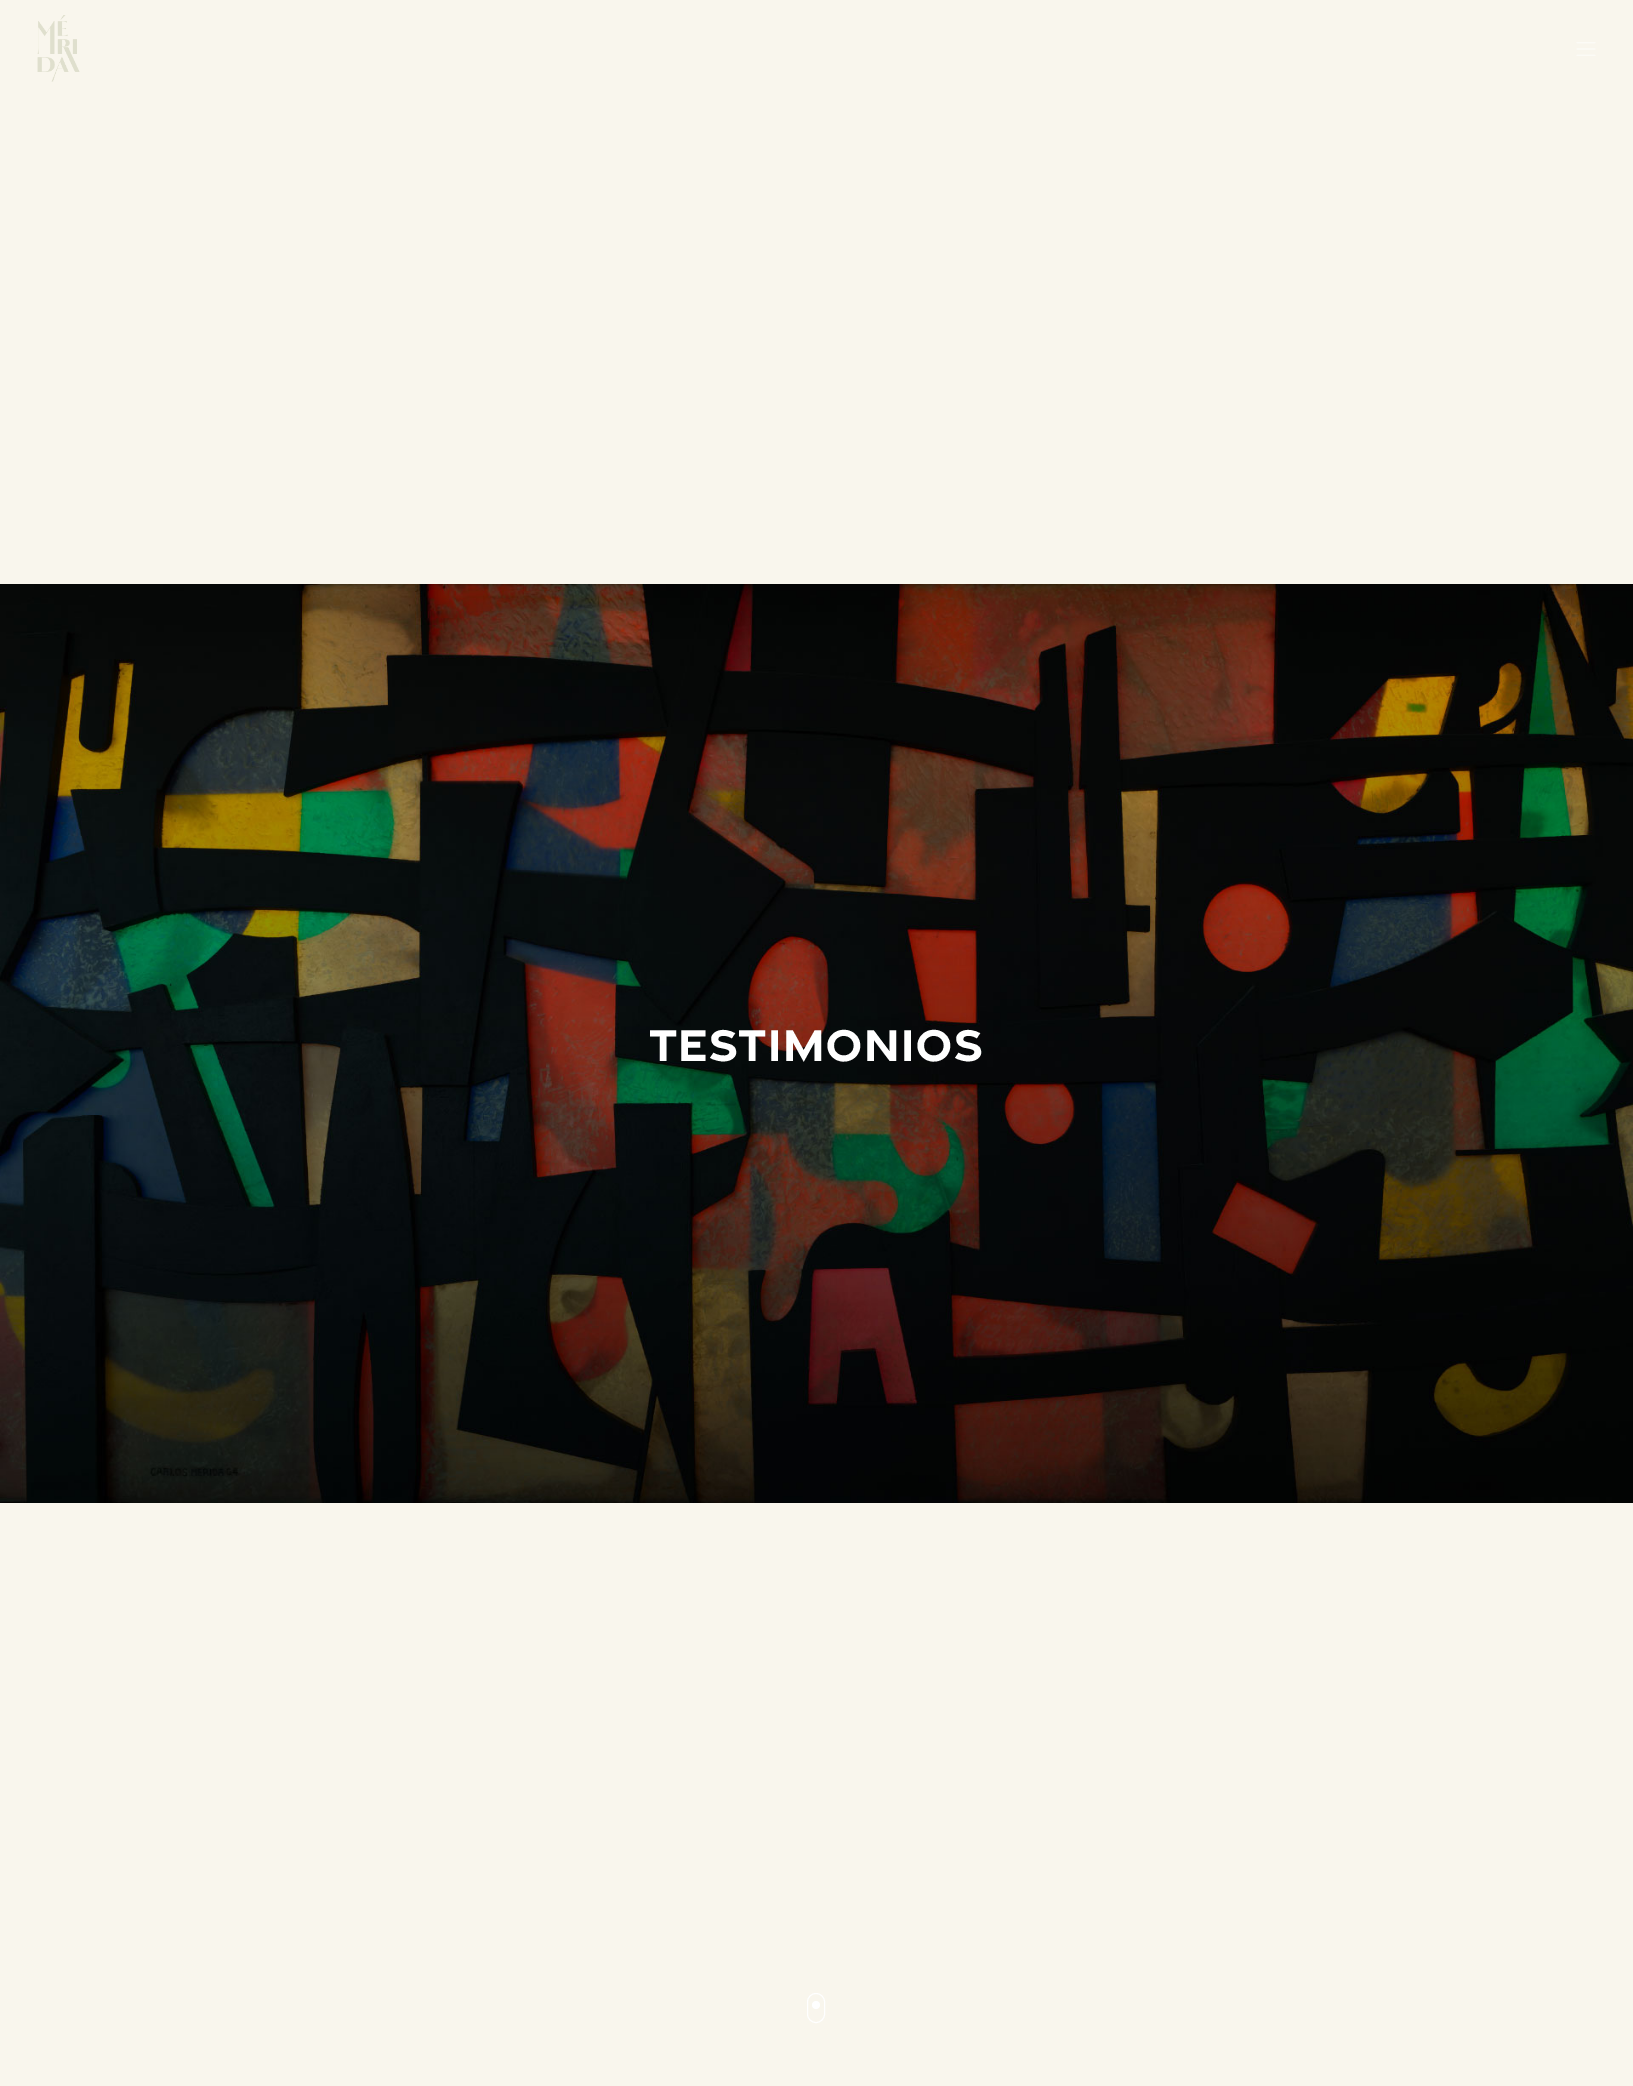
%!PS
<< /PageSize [1633 2086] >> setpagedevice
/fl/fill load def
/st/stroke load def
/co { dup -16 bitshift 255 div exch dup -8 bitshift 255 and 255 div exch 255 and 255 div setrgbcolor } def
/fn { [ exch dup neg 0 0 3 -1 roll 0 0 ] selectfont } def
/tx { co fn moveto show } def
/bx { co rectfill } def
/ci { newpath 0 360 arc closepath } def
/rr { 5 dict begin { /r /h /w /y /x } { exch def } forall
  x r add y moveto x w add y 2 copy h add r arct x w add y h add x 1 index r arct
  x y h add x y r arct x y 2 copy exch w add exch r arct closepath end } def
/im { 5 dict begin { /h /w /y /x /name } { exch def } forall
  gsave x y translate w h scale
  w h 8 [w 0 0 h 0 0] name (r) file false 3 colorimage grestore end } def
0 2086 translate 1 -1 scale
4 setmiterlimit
0 0 1633 2086 16#F9F6ED bx
(media/1.raw) 37 15 43 67 im
(media/2.raw) 1576 42 20 14 im
(media/3.raw) 0 584 1633 919 im
16#FFFFFF co
807.5 1993.5 17 29 8.5 rr st
816 2005 4 ci fl
(TESTIMONIOS) 649 1061 /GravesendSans-Bold 48 16#FFFFFF tx
showpage
